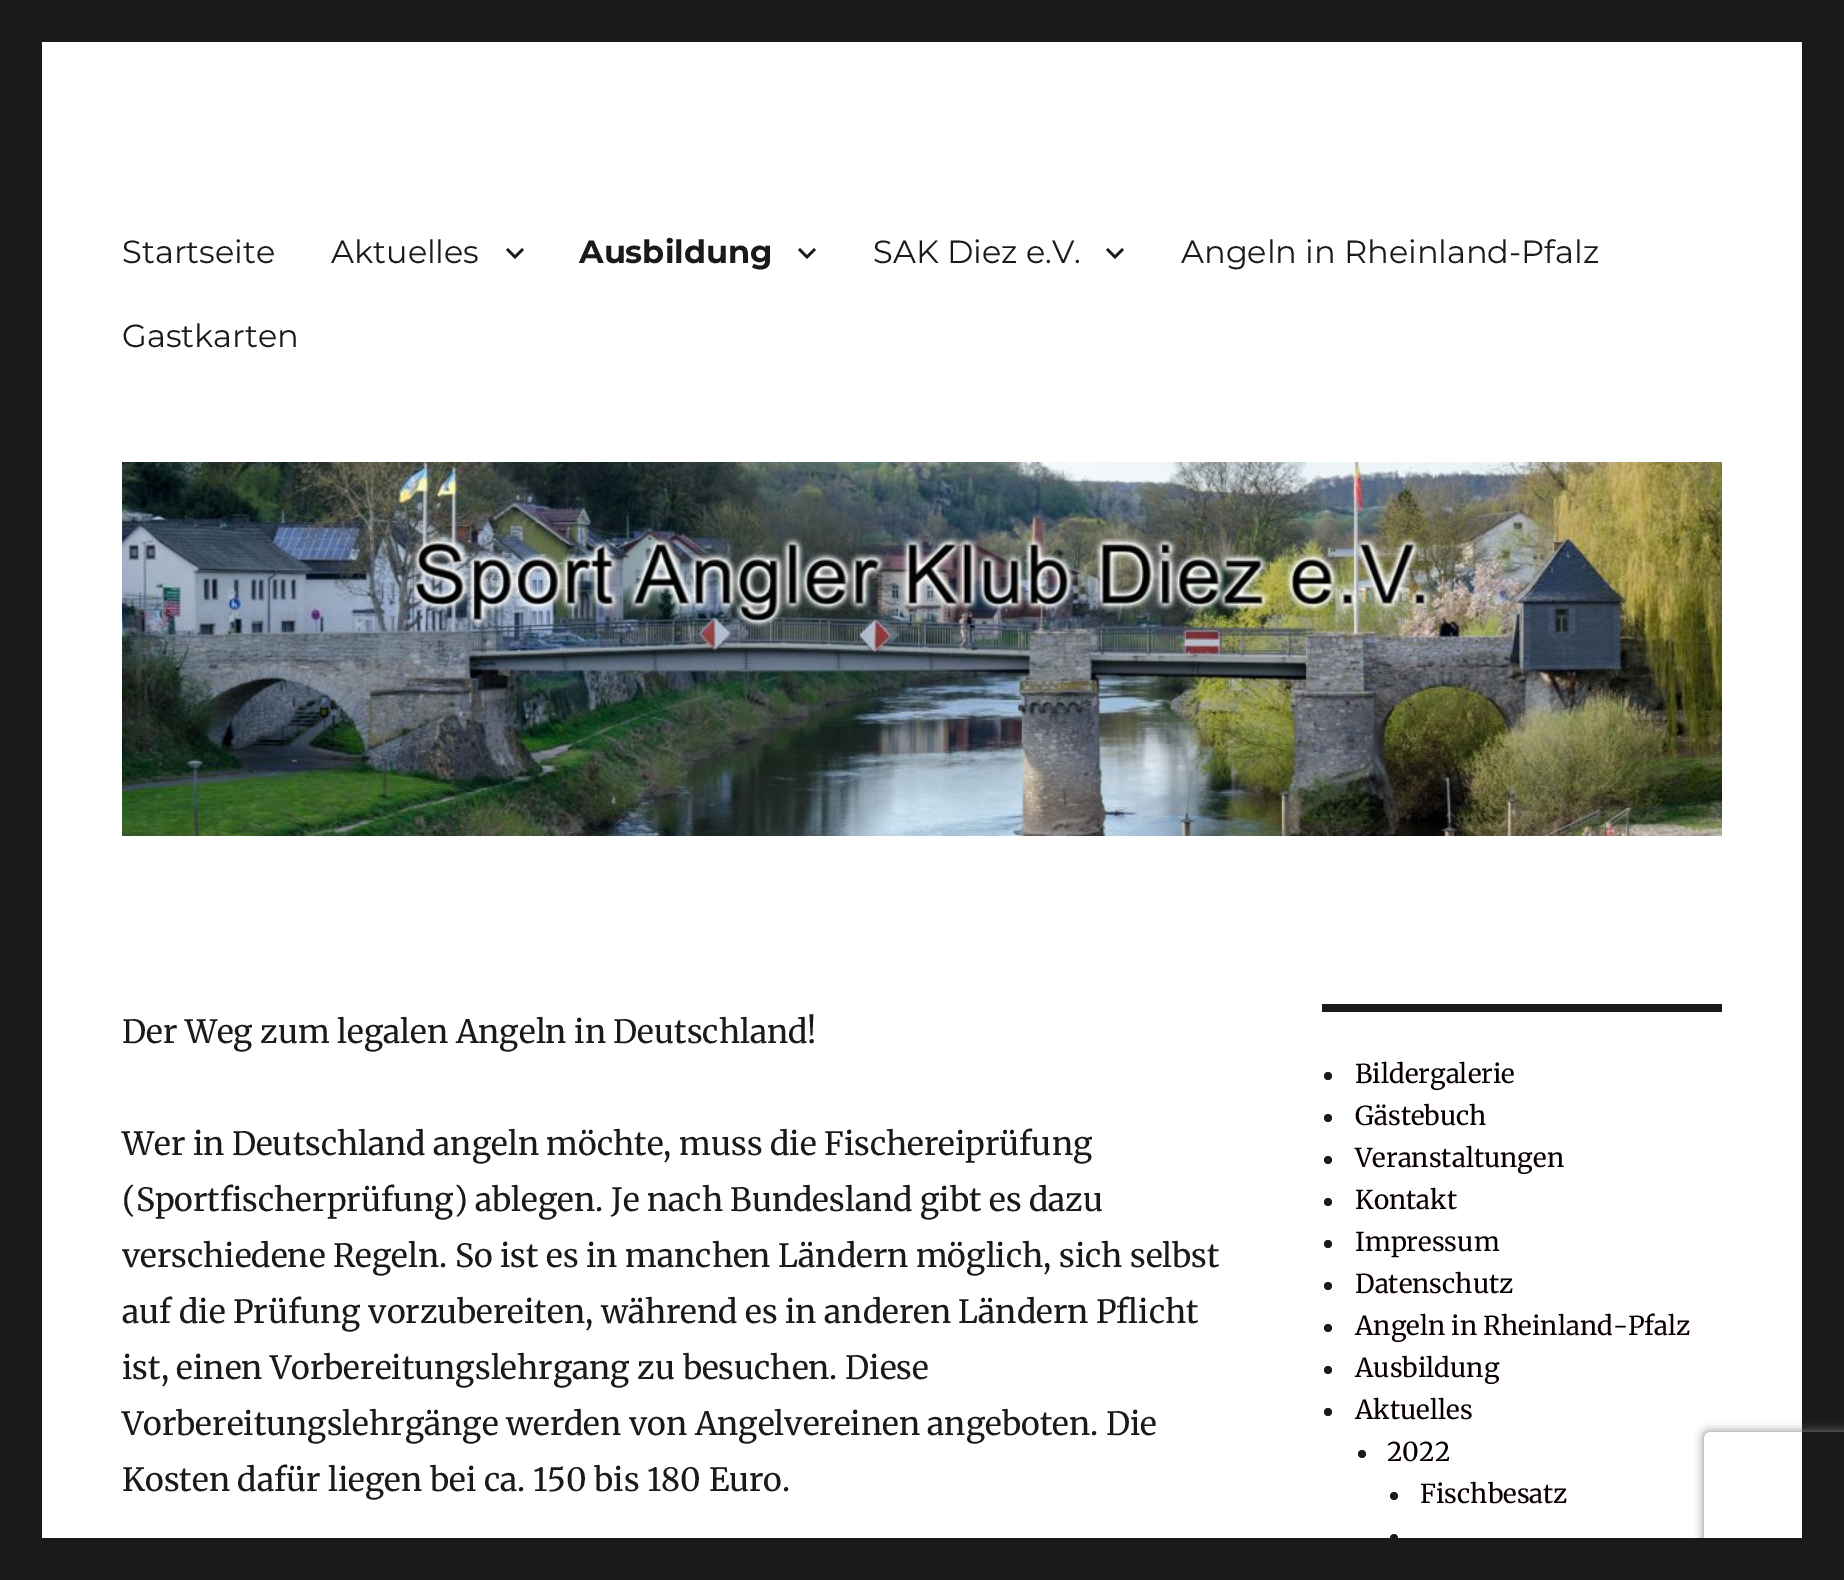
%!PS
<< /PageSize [1844 1580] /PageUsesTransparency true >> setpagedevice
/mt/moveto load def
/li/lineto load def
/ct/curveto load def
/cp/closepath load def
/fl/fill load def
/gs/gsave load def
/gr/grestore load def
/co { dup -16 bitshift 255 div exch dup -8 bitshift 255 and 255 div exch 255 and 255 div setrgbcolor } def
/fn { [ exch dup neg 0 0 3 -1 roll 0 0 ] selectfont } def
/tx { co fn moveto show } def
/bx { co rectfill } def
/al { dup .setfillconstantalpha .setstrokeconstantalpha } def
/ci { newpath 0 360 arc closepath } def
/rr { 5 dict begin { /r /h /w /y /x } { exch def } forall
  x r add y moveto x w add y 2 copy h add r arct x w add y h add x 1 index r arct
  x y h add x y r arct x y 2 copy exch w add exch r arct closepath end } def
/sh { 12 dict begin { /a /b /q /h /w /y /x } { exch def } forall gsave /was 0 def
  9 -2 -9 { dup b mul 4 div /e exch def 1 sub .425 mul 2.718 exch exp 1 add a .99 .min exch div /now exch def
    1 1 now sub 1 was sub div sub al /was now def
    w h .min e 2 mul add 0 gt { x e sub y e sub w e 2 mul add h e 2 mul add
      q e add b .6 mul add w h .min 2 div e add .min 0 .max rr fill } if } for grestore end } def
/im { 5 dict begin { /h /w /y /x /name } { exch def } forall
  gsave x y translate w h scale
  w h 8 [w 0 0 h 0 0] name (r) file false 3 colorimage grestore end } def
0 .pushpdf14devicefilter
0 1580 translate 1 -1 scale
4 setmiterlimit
0 0 1844 1580 16#1A1A1A bx
42 42 1760 1496 16#FFFFFF bx
16#1A1A1A co
522 248 mt 524 250 li 515 259 li 506 250 li 508 248 li 515 255 li cp fl
814 248 mt 816 250 li 807 259 li 798 250 li 800 248 li 807 255 li cp fl
1122 248 mt 1124 250 li 1115 259 li 1106 250 li 1108 248 li 1115 255 li cp fl
(media/1.raw) 122 462 1600 374 im
1322 1004 400 8 16#1A1A1A bx
1328 1076 4 ci fl
1328 1118 4 ci fl
1328 1160 4 ci fl
1328 1202 4 ci fl
1328 1244 4 ci fl
1328 1286 4 ci fl
1328 1328 4 ci fl
1328 1370 4 ci fl
1328 1412 4 ci fl
1362 1454 4 ci fl
1394 1496 4 ci fl
1394 1538 4 ci fl
gs
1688 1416 mt 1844 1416 li 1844 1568 li 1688 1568 li cp 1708 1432 mt 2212 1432 li 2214 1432 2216 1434 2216 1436 ct 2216 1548 li 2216 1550 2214 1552 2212 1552 ct 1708 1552 li 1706 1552 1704 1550 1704 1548 ct 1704 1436 li 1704 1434 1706 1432 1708 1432 ct cp eoclip newpath
16#808080 co
1704 1432 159 120 4 5 1 sh
gr
1694 1538 150 24 16#1A1A1A bx
(Startseite) 122 263 /Montserrat-Regular 32 16#1A1A1A tx
(Aktuelles) 331 263 /Montserrat-Regular 32 16#1A1A1A tx
(Ausbildung) 579 263 /Montserrat-Bold 32 16#1A1A1A tx
(SAK Diez e.V.) 873 263 /Montserrat-Regular 32 16#1A1A1A tx
(Angeln in Rheinland-Pfalz) 1181 263 /Montserrat-Regular 32 16#1A1A1A tx
(Gastkarten) 122 347 /Montserrat-Regular 32 16#1A1A1A tx
(Der Weg zum legalen Angeln in Deutschland!) 122 1043 /Merriweather-Regular 32 16#1A1A1A tx
(Wer in Deutschland angeln möchte, muss die Fischereiprüfung) 122 1155 /Merriweather-Regular 32 16#1A1A1A tx
(\(Sportfischerprüfung\) ablegen. Je nach Bundesland gibt es dazu) 122 1211 /Merriweather-Regular 32 16#1A1A1A tx
(verschiedene Regeln. So ist es in manchen Ländern möglich, sich selbst) 122 1267 /Merriweather-Regular 32 16#1A1A1A tx
(auf die Prüfung vorzubereiten, während es in anderen Ländern Pflicht) 122 1323 /Merriweather-Regular 32 16#1A1A1A tx
(ist, einen Vorbereitungslehrgang zu besuchen. Diese) 122 1379 /Merriweather-Regular 32 16#1A1A1A tx
(Vorbereitungslehrgänge werden von Angelvereinen angeboten. Die) 122 1435 /Merriweather-Regular 32 16#1A1A1A tx
(Kosten dafür liegen bei ca. 150 bis 180 Euro.) 122 1491 /Merriweather-Regular 32 16#1A1A1A tx
(Bildergalerie) 1355 1083 /Merriweather-Regular 26 16#0A0002 tx
(Gästebuch) 1355 1125 /Merriweather-Regular 26 16#0A0002 tx
(Veranstaltungen) 1355 1167 /Merriweather-Regular 26 16#0A0002 tx
(Kontakt) 1355 1209 /Merriweather-Regular 26 16#0A0002 tx
(Impressum) 1355 1251 /Merriweather-Regular 26 16#0A0002 tx
(Datenschutz) 1355 1293 /Merriweather-Regular 26 16#0A0002 tx
(Angeln in Rheinland-Pfalz) 1355 1335 /Merriweather-Regular 26 16#0A0002 tx
(Ausbildung) 1355 1377 /Merriweather-Regular 26 16#0A0002 tx
(Aktuelles) 1355 1419 /Merriweather-Regular 26 16#0A0002 tx
(2022) 1387 1461 /Merriweather-Regular 26 16#0A0002 tx
(Fischbesatz) 1420 1503 /Merriweather-Regular 26 16#0A0002 tx
.poppdf14devicefilter showpage
